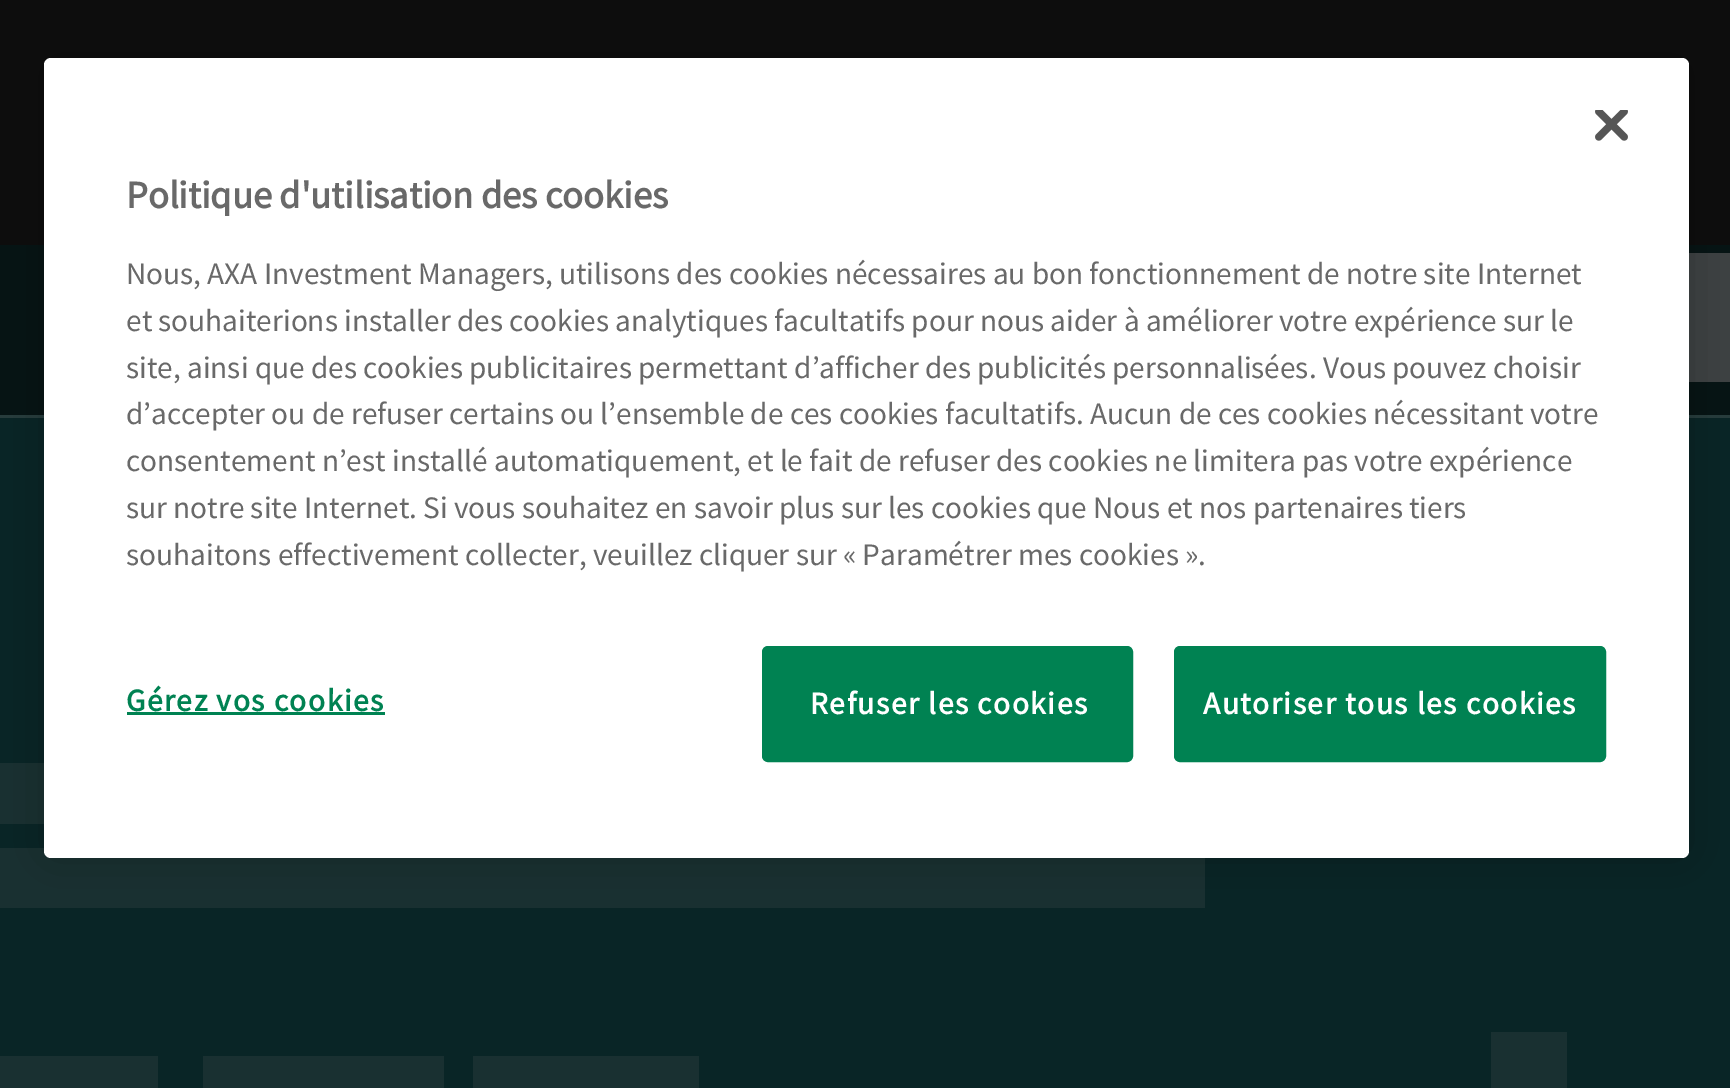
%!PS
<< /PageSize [1730 1088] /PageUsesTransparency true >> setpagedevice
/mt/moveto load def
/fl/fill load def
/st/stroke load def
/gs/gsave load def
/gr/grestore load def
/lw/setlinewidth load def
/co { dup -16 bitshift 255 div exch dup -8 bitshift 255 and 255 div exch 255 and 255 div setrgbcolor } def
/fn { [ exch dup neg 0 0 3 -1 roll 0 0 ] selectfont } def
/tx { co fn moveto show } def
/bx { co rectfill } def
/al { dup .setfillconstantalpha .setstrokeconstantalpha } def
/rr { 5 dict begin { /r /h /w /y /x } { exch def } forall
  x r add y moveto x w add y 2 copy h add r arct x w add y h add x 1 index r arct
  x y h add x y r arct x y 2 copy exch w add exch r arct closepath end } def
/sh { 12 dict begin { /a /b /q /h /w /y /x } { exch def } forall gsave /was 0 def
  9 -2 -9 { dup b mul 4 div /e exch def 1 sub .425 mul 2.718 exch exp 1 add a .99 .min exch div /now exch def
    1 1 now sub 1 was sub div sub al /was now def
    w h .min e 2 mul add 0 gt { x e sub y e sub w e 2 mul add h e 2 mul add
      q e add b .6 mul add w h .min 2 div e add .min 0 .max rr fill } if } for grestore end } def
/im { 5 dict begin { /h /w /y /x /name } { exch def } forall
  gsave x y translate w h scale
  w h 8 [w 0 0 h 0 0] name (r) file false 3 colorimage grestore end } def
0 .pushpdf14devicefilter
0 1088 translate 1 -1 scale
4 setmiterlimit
0 0 1730 1088 16#061414 bx
0 0 1730 245 16#0D0D0D bx
1689 253 41 129 16#3D4344 bx
0 418 1730 670 16#092526 bx
0 415 1730 3 16#273C3C bx
0 763 44 61 16#193031 bx
0 848 1205 60 16#193031 bx
16#000000 co
44 58 1645 800 7 25 .2 sh
16#FFFFFF co
44 58 1645 800 7 rr fl
(media/1.raw) 1595 110 33 31 im
127 712 258 3 16#008252 bx
763.5 647.5 368 113 4.5 rr gs fl gr
3 lw
st
1175.5 647.5 429 113 4.5 rr gs fl gr
st
0 1056 158 32 16#193031 bx
203 1056 241 32 16#193031 bx
473 1056 226 32 16#193031 bx
1491 1032 76 56 16#193031 bx
(Politique d'utilisation des cookies) 126 208 /SourceSansPro-Bold 38.5 16#696969 tx
(Nous, AXA Investment Managers, utilisons des cookies nécessaires au bon fonctionnement de notre site Internet) 126 284 /SourceSansPro-Regular 31.3 16#696969 tx
(et souhaiterions installer des cookies analytiques facultatifs pour nous aider à améliorer votre expérience sur le) 126 331 /SourceSansPro-Regular 31.3 16#696969 tx
(site, ainsi que des cookies publicitaires permettant d’afficher des publicités personnalisées. Vous pouvez choisir) 126 378 /SourceSansPro-Regular 31.3 16#696969 tx
(d’accepter ou de refuser certains ou l’ensemble de ces cookies facultatifs. Aucun de ces cookies nécessitant votre) 126 424 /SourceSansPro-Regular 31.3 16#696969 tx
(consentement n’est installé automatiquement, et le fait de refuser des cookies ne limitera pas votre expérience) 126 471 /SourceSansPro-Regular 31.3 16#696969 tx
(sur notre site Internet. Si vous souhaitez en savoir plus sur les cookies que Nous et nos partenaires tiers) 126 518 /SourceSansPro-Regular 31.3 16#696969 tx
(souhaitons effectivement collecter, veuillez cliquer sur « Paramétrer mes cookies ».) 126 565 /SourceSansPro-Regular 31.3 16#696969 tx
/SourceSansPro-Bold 31.3 fn
16#008252 co
126 711 mt 1.6 0 (Gérez vos cookies) ashow
16#FFFFFF co
810 714 mt 1.6 0 (Refuser les cookies) ashow
1203 714 mt 1.6 0 (Autoriser tous les cookies) ashow
.poppdf14devicefilter showpage
